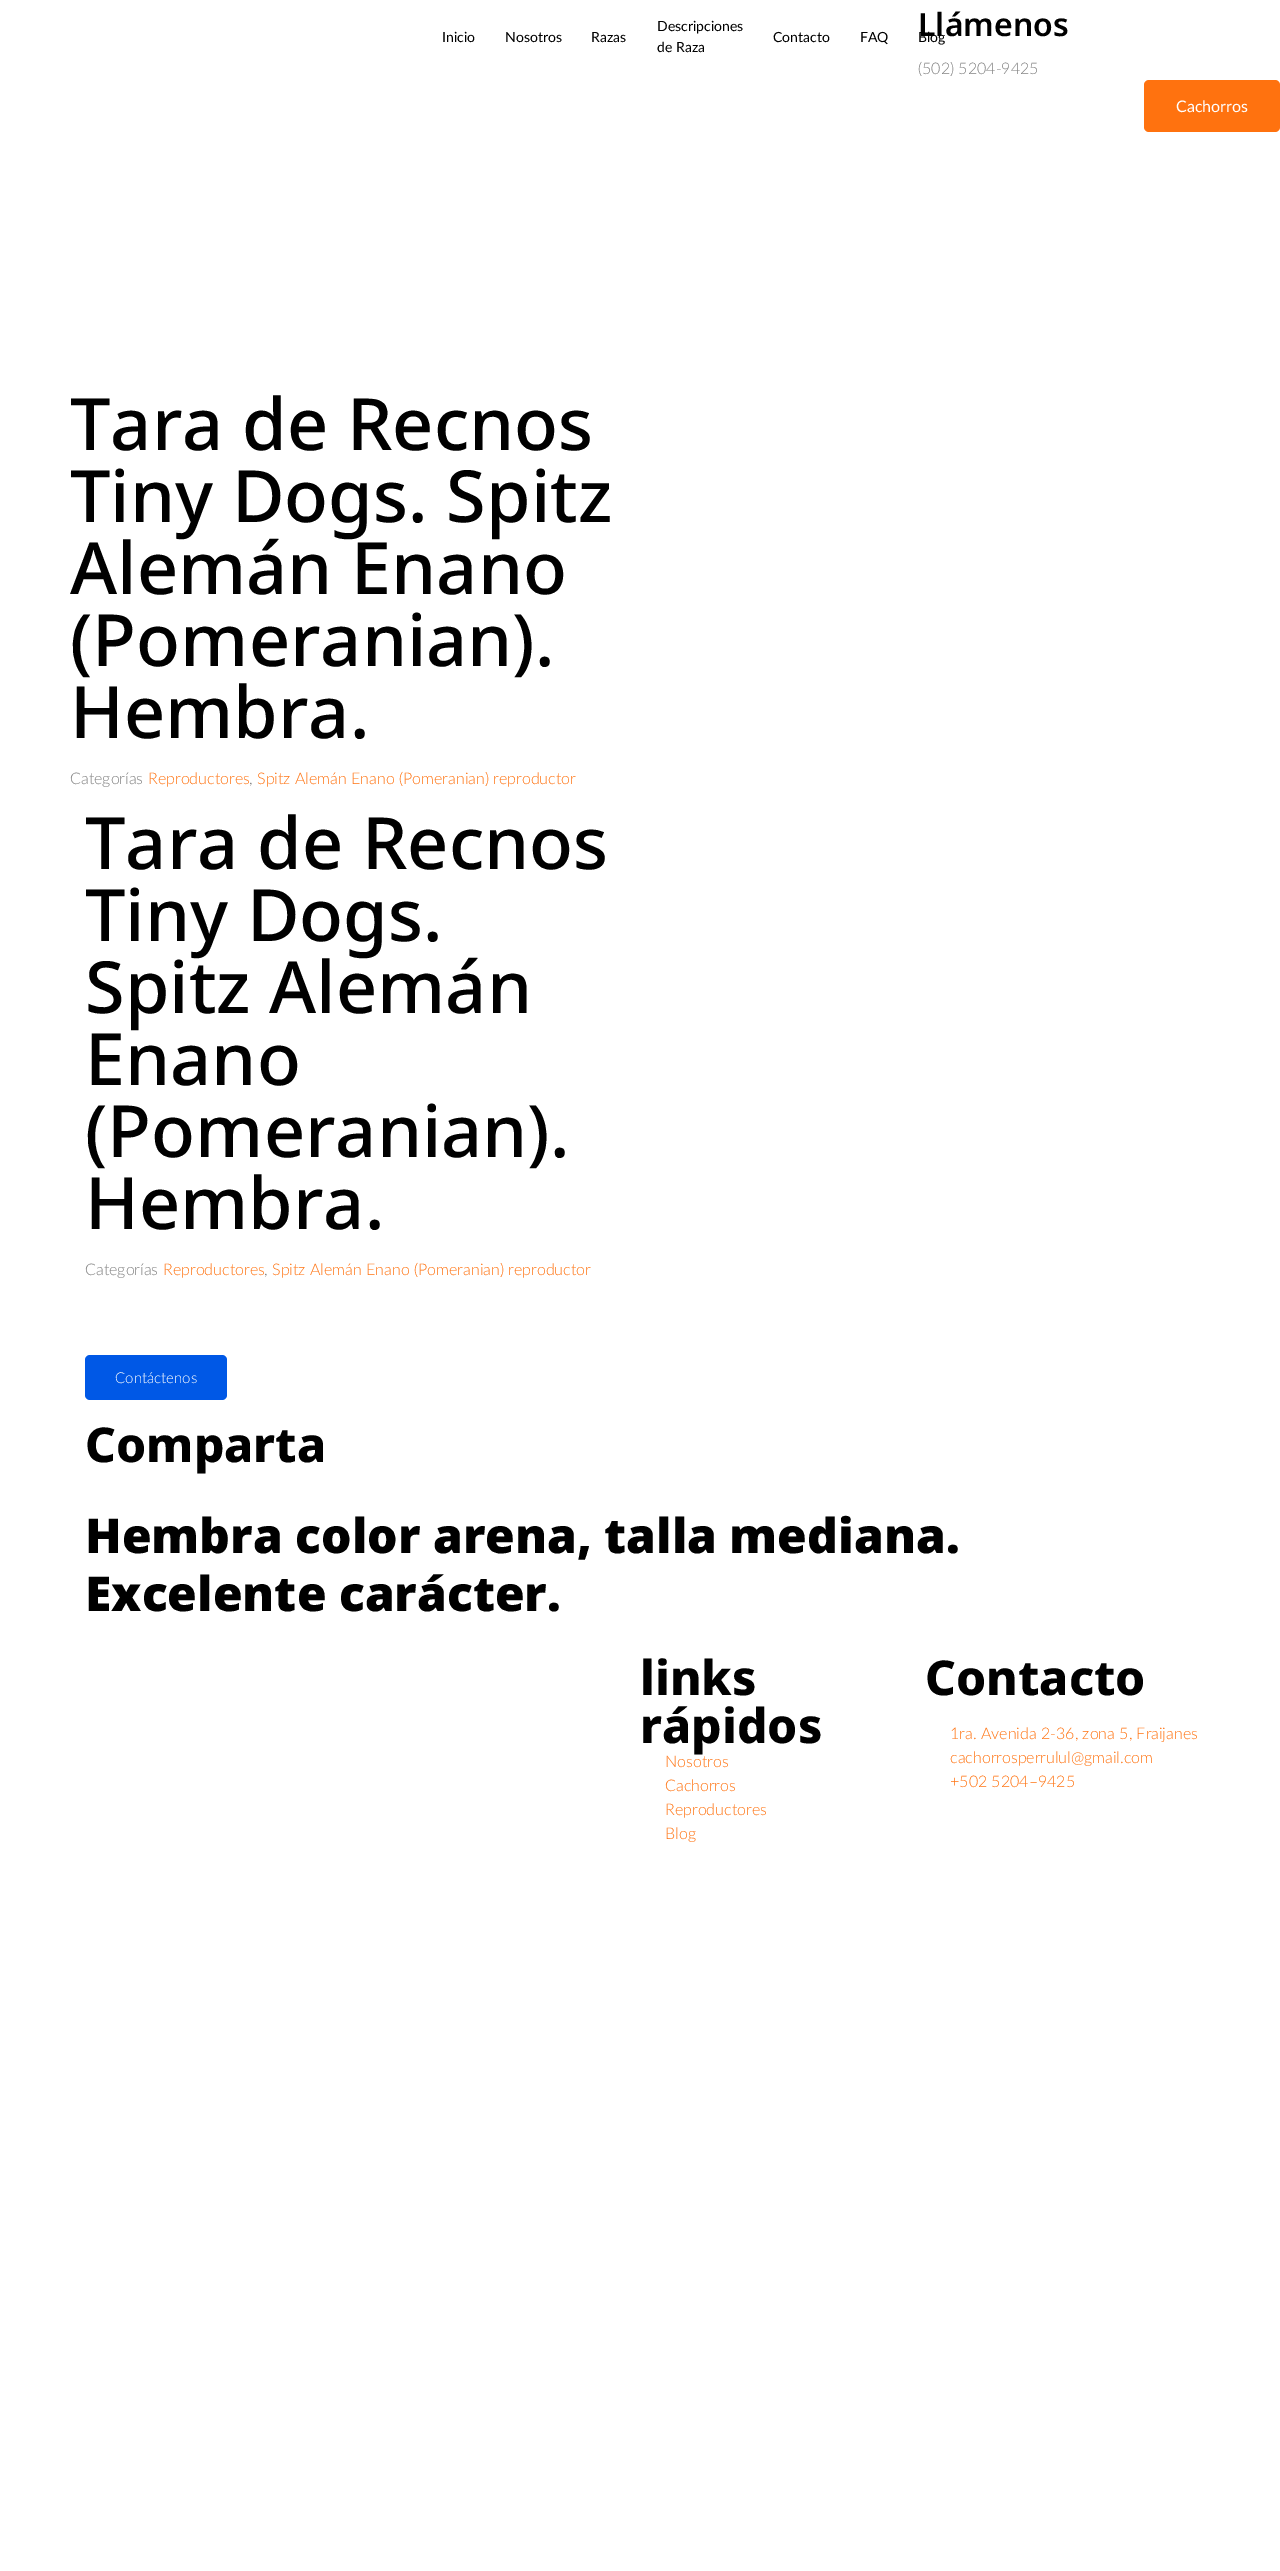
%!PS
<< /PageSize [1280 2571] >> setpagedevice
/fl/fill load def
/co { dup -16 bitshift 255 div exch dup -8 bitshift 255 and 255 div exch 255 and 255 div setrgbcolor } def
/fn { [ exch dup neg 0 0 3 -1 roll 0 0 ] selectfont } def
/tx { co fn moveto show } def
/bx { co rectfill } def
/rr { 5 dict begin { /r /h /w /y /x } { exch def } forall
  x r add y moveto x w add y 2 copy h add r arct x w add y h add x 1 index r arct
  x y h add x y r arct x y 2 copy exch w add exch r arct closepath end } def
0 2571 translate 1 -1 scale
4 setmiterlimit
0 0 1280 2571 16#FFFFFF bx
16#FF720F co
1144 80 136 52 5 rr fl
16#0058E6 co
85 1355 142 45 5 rr fl
(Inicio) 442 42 /Lato-Regular 14 16#000000 tx
(Nosotros) 505 42 /Lato-Regular 14 16#000000 tx
(Razas) 591 42 /Lato-Regular 14 16#000000 tx
(Descripciones) 657 31 /Lato-Regular 14 16#000000 tx
(de Raza) 657 52 /Lato-Regular 14 16#000000 tx
(Contacto) 773 42 /Lato-Regular 14 16#000000 tx
(FAQ) 860 42 /Lato-Regular 14 16#000000 tx
(Blog) 918 42 /Lato-Regular 14 16#000000 tx
(Llámenos) 918 36 /NotoSans-SemiBold 32 16#000000 tx
(\(502\) 5204-9425) 918 74 /Lato-Light 16 16#818181 tx
(Cachorros) 1176 112 /Lato-Regular 16 16#FFFFFF tx
(Tara de Recnos) 70 450 /NotoSans-Medium 72 16#000000 tx
(Tiny Dogs. Spitz) 70 522 /NotoSans-Medium 72 16#000000 tx
(Alemán Enano) 70 594 /NotoSans-Medium 72 16#000000 tx
(\(Pomeranian\).) 70 666 /NotoSans-Medium 72 16#000000 tx
(Hembra.) 70 738 /NotoSans-Medium 72 16#000000 tx
(Categorías) 70 784 /Lato-Light 16 16#818181 tx
(Reproductores) 148 784 /Lato-Light 16 16#FF720F tx
(,) 249 784 /Lato-Light 16 16#818181 tx
(Spitz Alemán Enano \(Pomeranian\) reproductor) 257 784 /Lato-Light 16 16#FF720F tx
(Tara de Recnos) 85 869 /NotoSans-Medium 72 16#000000 tx
(Tiny Dogs.) 85 941 /NotoSans-Medium 72 16#000000 tx
(Spitz Alemán) 85 1013 /NotoSans-Medium 72 16#000000 tx
(Enano) 85 1085 /NotoSans-Medium 72 16#000000 tx
(\(Pomeranian\).) 85 1157 /NotoSans-Medium 72 16#000000 tx
(Hembra.) 85 1229 /NotoSans-Medium 72 16#000000 tx
(Categorías) 85 1275 /Lato-Light 16 16#818181 tx
(Reproductores) 163 1275 /Lato-Light 16 16#FF720F tx
(,) 264 1275 /Lato-Light 16 16#818181 tx
(Spitz Alemán Enano \(Pomeranian\) reproductor) 272 1275 /Lato-Light 16 16#FF720F tx
(Contáctenos) 115 1383 /Lato-Light 15 16#FFFFFF tx
(Comparta) 85 1462 /NotoSans-ExtraBold 48 16#000000 tx
(Hembra color arena, talla mediana.) 85 1553 /NotoSans-Black 48 16#000000 tx
(Excelente carácter.) 85 1611 /NotoSans-Black 48 16#000000 tx
(links) 640 1695 /NotoSans-ExtraBold 48 16#000000 tx
(rápidos) 640 1743 /NotoSans-ExtraBold 48 16#000000 tx
(Nosotros) 665 1767 /Lato-Light 16 16#FF720F tx
(Cachorros) 665 1791 /Lato-Light 16 16#FF720F tx
(Reproductores) 665 1815 /Lato-Light 16 16#FF720F tx
(Blog) 665 1839 /Lato-Light 16 16#FF720F tx
(Contacto) 925 1695 /NotoSans-ExtraBold 48 16#000000 tx
(1ra. Avenida 2-36, zona 5, Fraijanes) 950 1739 /Lato-Light 16 16#FF720F tx
(cachorrosperrulul@gmail.com) 950 1763 /Lato-Light 16 16#FF720F tx
(+502 5204–9425) 950 1787 /Lato-Light 16 16#FF720F tx
showpage
